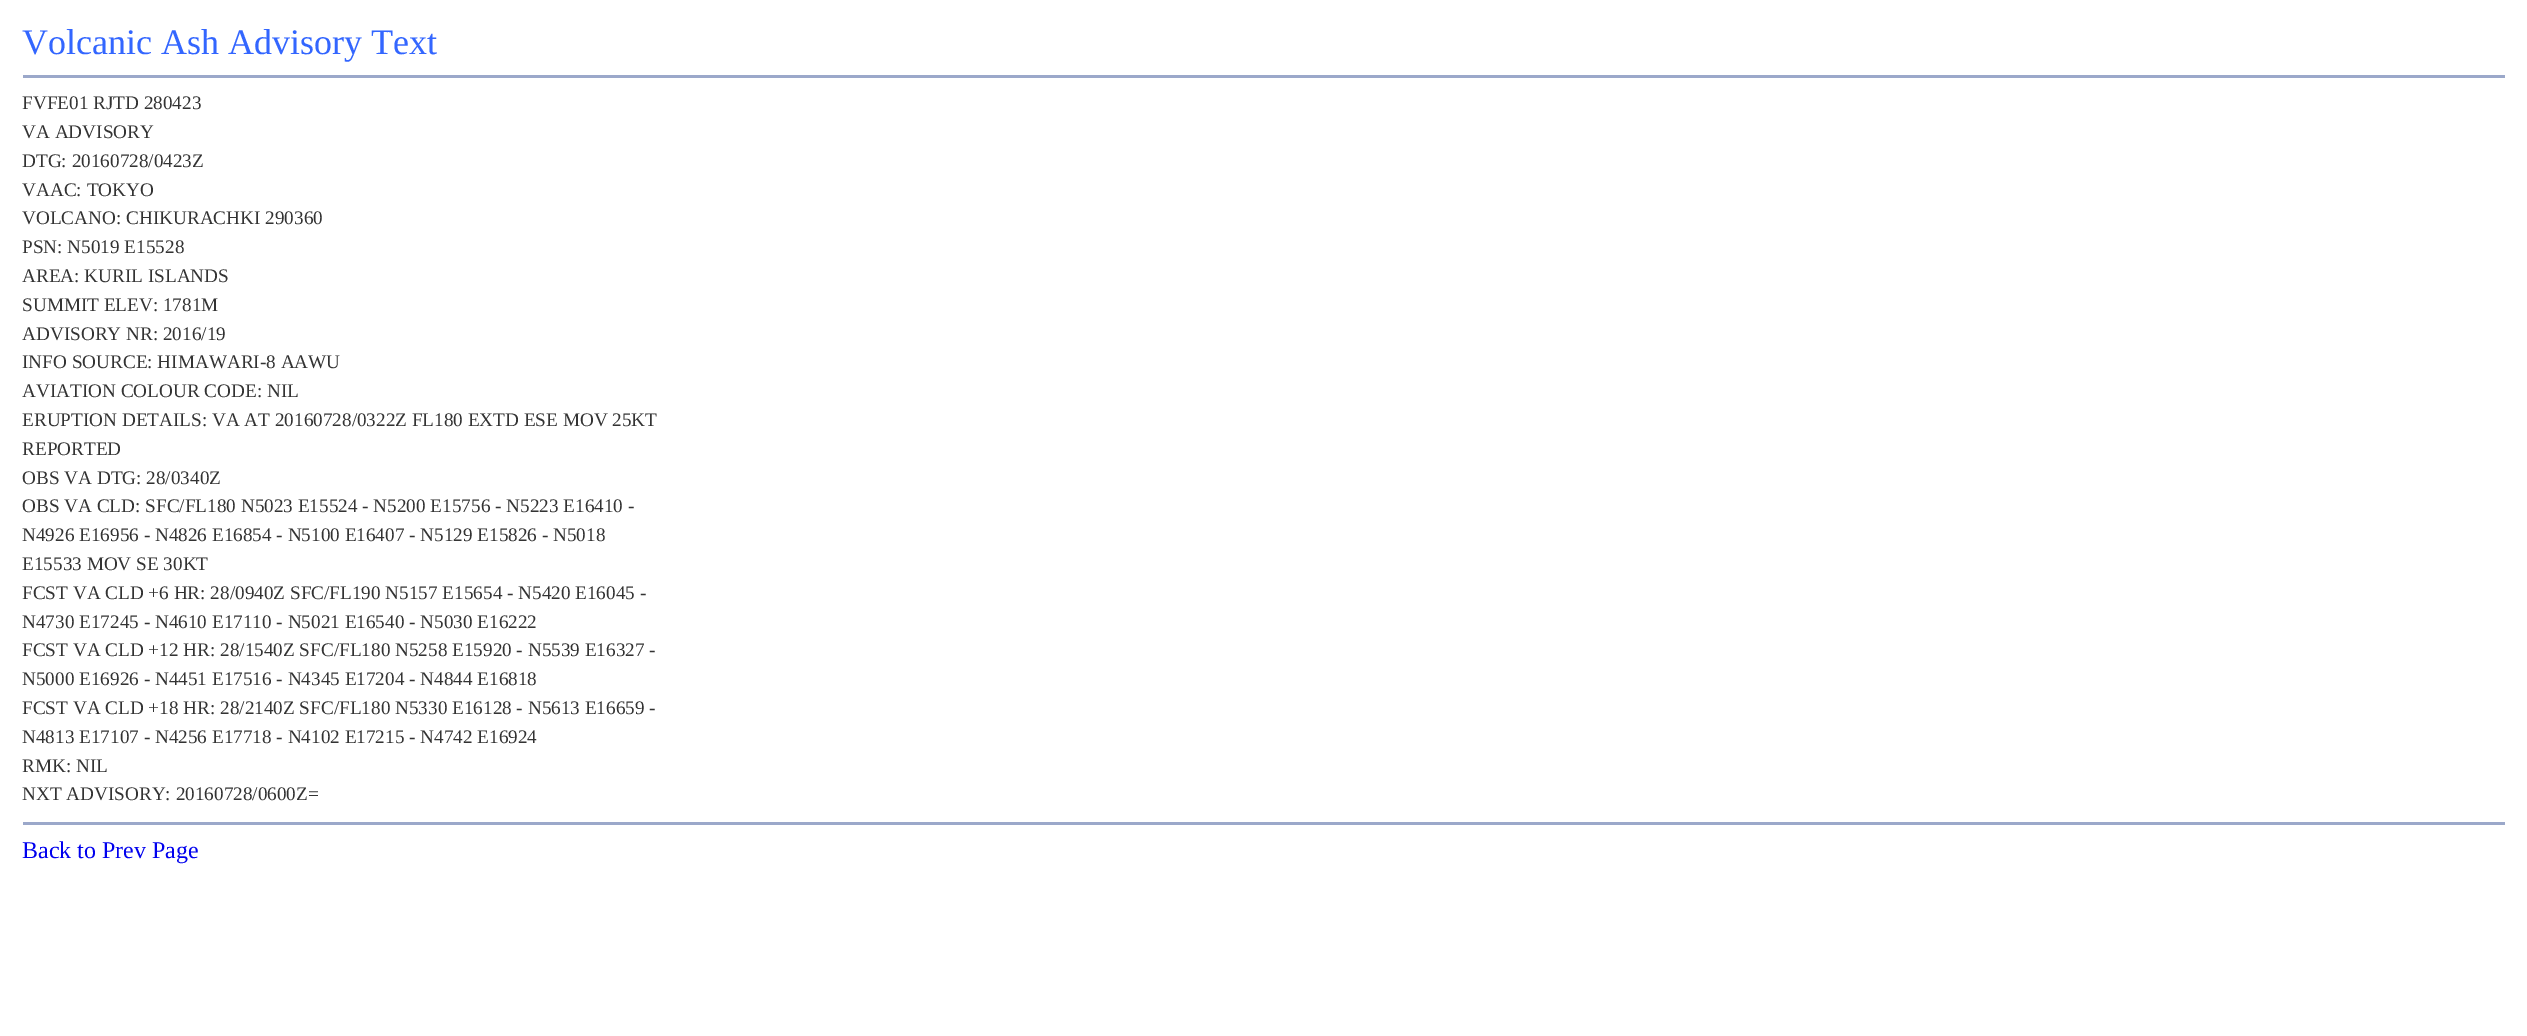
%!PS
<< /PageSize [2527 1036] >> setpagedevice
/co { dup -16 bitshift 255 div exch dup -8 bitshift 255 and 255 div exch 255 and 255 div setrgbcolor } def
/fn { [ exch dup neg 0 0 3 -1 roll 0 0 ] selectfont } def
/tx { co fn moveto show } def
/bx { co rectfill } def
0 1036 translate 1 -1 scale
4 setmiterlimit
0 0 2527 1036 16#FFFFFF bx
23 75 2482 3 16#9BA8CA bx
23 822 2482 3 16#9BA8CA bx
(Volcanic Ash Advisory Text) 22 54 /LiberationSerif-Regular 36 16#3366FF tx
(FVFE01 RJTD 280423) 22 109 /LiberationSerif-Regular 19.2 16#333333 tx
(VA ADVISORY) 22 138 /LiberationSerif-Regular 19.2 16#333333 tx
(DTG: 20160728/0423Z) 22 167 /LiberationSerif-Regular 19.2 16#333333 tx
(VAAC: TOKYO) 22 196 /LiberationSerif-Regular 19.2 16#333333 tx
(VOLCANO: CHIKURACHKI 290360) 22 224 /LiberationSerif-Regular 19.2 16#333333 tx
(PSN: N5019 E15528) 22 253 /LiberationSerif-Regular 19.2 16#333333 tx
(AREA: KURIL ISLANDS) 22 282 /LiberationSerif-Regular 19.2 16#333333 tx
(SUMMIT ELEV: 1781M) 22 311 /LiberationSerif-Regular 19.2 16#333333 tx
(ADVISORY NR: 2016/19) 22 340 /LiberationSerif-Regular 19.2 16#333333 tx
(INFO SOURCE: HIMAWARI-8 AAWU) 22 368 /LiberationSerif-Regular 19.2 16#333333 tx
(AVIATION COLOUR CODE: NIL) 22 397 /LiberationSerif-Regular 19.2 16#333333 tx
(ERUPTION DETAILS: VA AT 20160728/0322Z FL180 EXTD ESE MOV 25KT) 22 426 /LiberationSerif-Regular 19.2 16#333333 tx
(REPORTED) 22 455 /LiberationSerif-Regular 19.2 16#333333 tx
(OBS VA DTG: 28/0340Z) 22 484 /LiberationSerif-Regular 19.2 16#333333 tx
(OBS VA CLD: SFC/FL180 N5023 E15524 - N5200 E15756 - N5223 E16410 -) 22 512 /LiberationSerif-Regular 19.2 16#333333 tx
(N4926 E16956 - N4826 E16854 - N5100 E16407 - N5129 E15826 - N5018) 22 541 /LiberationSerif-Regular 19.2 16#333333 tx
(E15533 MOV SE 30KT) 22 570 /LiberationSerif-Regular 19.2 16#333333 tx
(FCST VA CLD +6 HR: 28/0940Z SFC/FL190 N5157 E15654 - N5420 E16045 -) 22 599 /LiberationSerif-Regular 19.2 16#333333 tx
(N4730 E17245 - N4610 E17110 - N5021 E16540 - N5030 E16222) 22 628 /LiberationSerif-Regular 19.2 16#333333 tx
(FCST VA CLD +12 HR: 28/1540Z SFC/FL180 N5258 E15920 - N5539 E16327 -) 22 656 /LiberationSerif-Regular 19.2 16#333333 tx
(N5000 E16926 - N4451 E17516 - N4345 E17204 - N4844 E16818) 22 685 /LiberationSerif-Regular 19.2 16#333333 tx
(FCST VA CLD +18 HR: 28/2140Z SFC/FL180 N5330 E16128 - N5613 E16659 -) 22 714 /LiberationSerif-Regular 19.2 16#333333 tx
(N4813 E17107 - N4256 E17718 - N4102 E17215 - N4742 E16924) 22 743 /LiberationSerif-Regular 19.2 16#333333 tx
(RMK: NIL) 22 772 /LiberationSerif-Regular 19.2 16#333333 tx
(NXT ADVISORY: 20160728/0600Z=) 22 800 /LiberationSerif-Regular 19.2 16#333333 tx
(Back to Prev Page) 22 858 /LiberationSerif-Regular 24 16#0000EE tx
showpage
